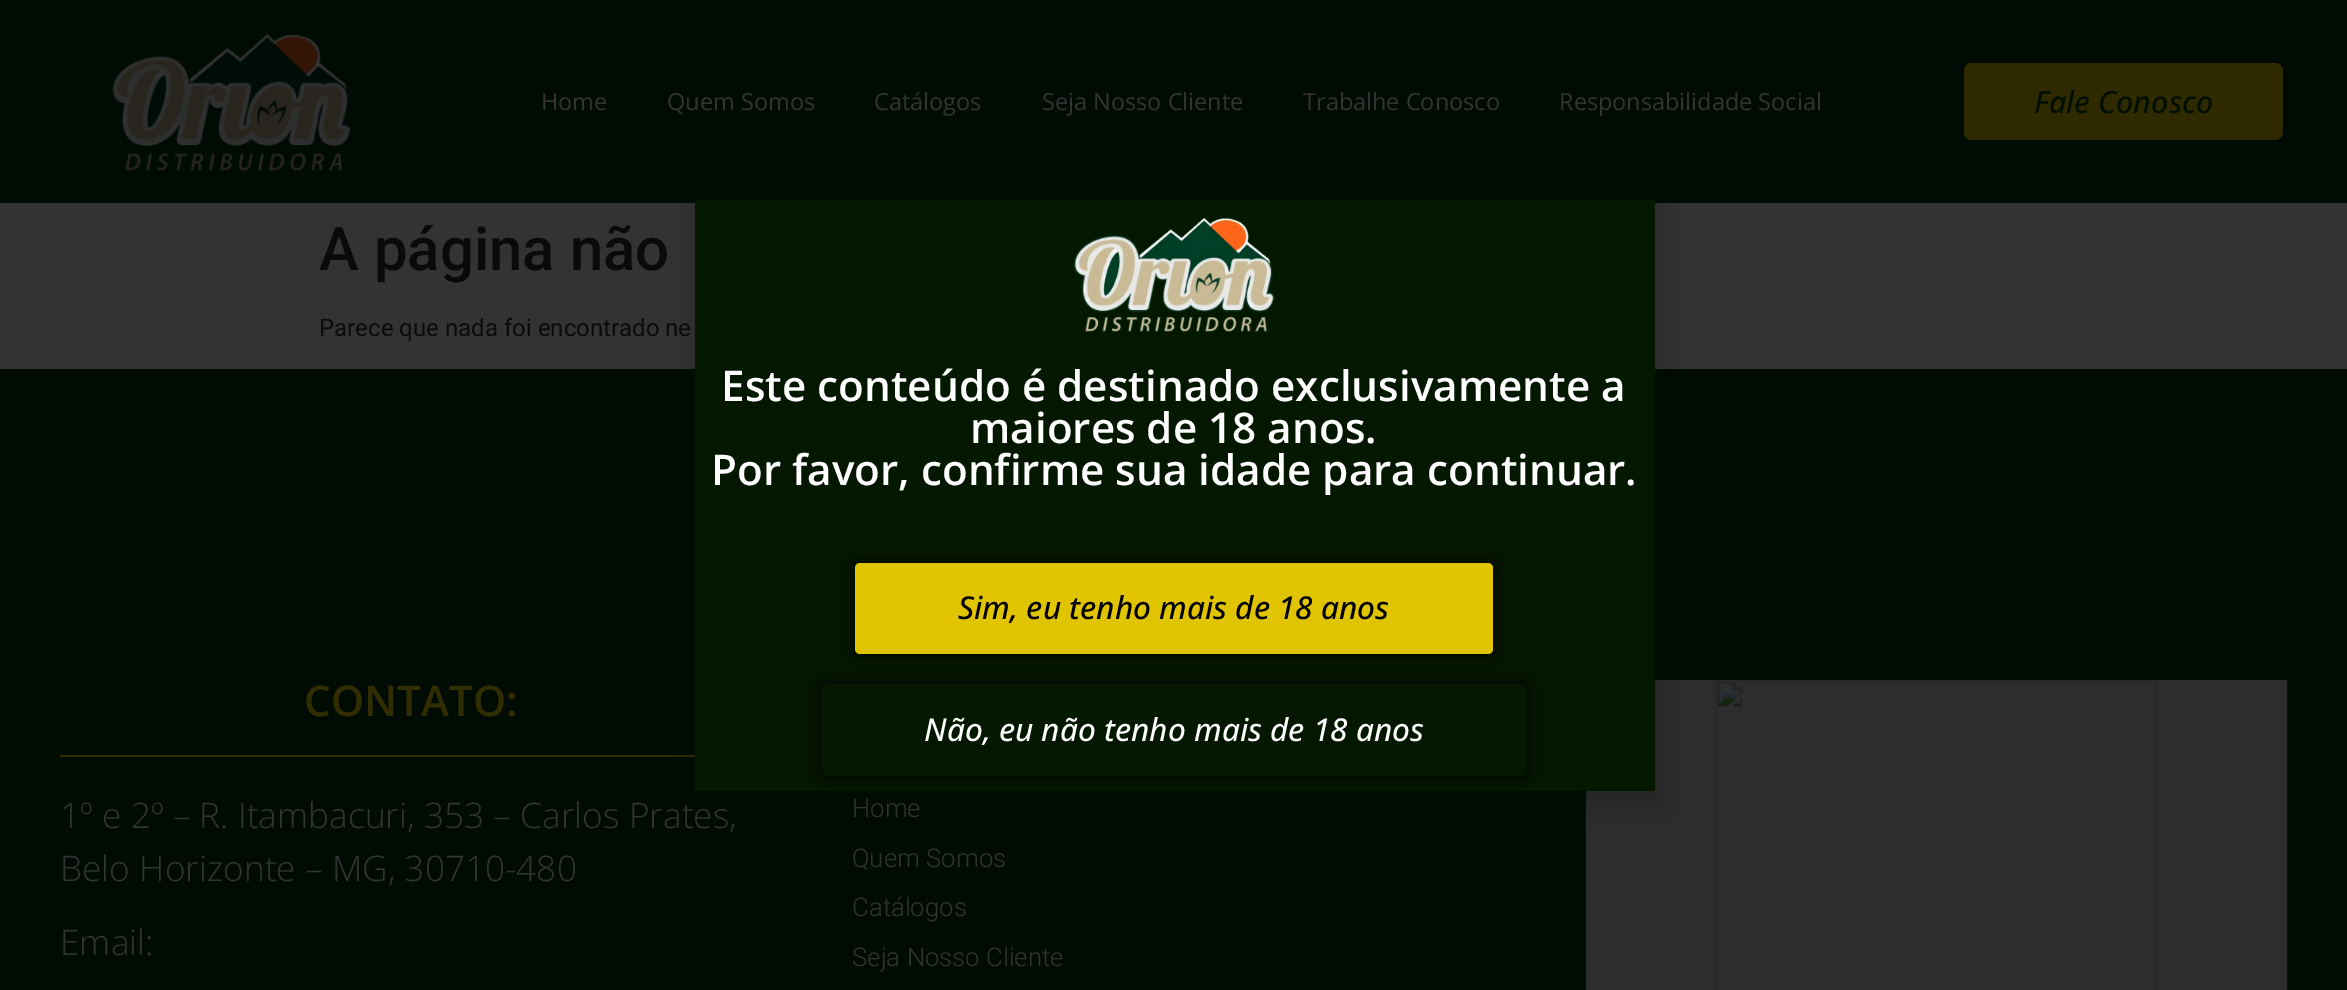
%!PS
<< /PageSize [2347 990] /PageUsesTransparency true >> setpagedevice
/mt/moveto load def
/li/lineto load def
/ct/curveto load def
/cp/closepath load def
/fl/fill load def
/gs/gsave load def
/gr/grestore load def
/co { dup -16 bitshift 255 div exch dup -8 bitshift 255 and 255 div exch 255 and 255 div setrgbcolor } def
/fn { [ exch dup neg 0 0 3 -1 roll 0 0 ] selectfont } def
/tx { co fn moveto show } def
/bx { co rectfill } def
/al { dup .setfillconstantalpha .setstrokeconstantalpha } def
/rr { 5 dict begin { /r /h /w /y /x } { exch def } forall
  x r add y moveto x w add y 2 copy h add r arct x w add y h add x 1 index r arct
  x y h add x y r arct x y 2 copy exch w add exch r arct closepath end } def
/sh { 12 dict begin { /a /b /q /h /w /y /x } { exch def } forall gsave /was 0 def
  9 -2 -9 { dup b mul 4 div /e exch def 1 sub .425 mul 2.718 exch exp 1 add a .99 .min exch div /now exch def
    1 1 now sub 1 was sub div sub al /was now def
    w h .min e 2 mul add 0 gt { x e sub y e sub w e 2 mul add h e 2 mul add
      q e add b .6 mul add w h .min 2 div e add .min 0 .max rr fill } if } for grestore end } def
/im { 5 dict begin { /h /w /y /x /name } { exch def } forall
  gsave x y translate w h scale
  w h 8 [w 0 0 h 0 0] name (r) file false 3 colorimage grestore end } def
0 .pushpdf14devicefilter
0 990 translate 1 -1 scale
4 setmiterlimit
0 0 2347 990 16#333333 bx
0 0 2347 203 16#000C03 bx
(media/1.raw) 112 33 240 138 im
16#2F2900 co
1964 63 319 77 8 rr fl
0 369 2347 621 16#000C03 bx
60 755 635 2 16#322D00 bx
(media/3.raw) 1585 679 703 311 im
16#000000 co
693 207 969 600 0 17 .2 sh
695 200 960 591 16#041800 bx
(media/2.raw) 1073 217 202 115 im
16#000000 co
855 563 638 91 5 7.5 .97 sh
16#E0C400 co
855 563 638 91 5 rr fl
gs
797 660 mt 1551 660 li 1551 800 li 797 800 li cp 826 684 mt 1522 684 li 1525 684 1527 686 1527 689 ct 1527 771 li 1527 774 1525 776 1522 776 ct 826 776 li 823 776 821 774 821 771 ct 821 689 li 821 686 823 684 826 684 ct cp eoclip newpath
16#000000 co
821 684 706 92 5 7.5 .97 sh
gr
(Home) 541 110 /OpenSans-Regular 23.5 16#333333 tx
(Quem Somos) 667 110 /OpenSans-Regular 23.5 16#333333 tx
(Catálogos) 874 110 /OpenSans-Regular 23.5 16#333333 tx
(Seja Nosso Cliente) 1042 110 /OpenSans-Regular 23.5 16#333333 tx
(Trabalhe Conosco) 1303 110 /OpenSans-Regular 23.5 16#333333 tx
(Responsabilidade Social) 1559 110 /OpenSans-Regular 23.5 16#333333 tx
(Fale Conosco) 2034 113 /OpenSans-MediumItalic 30.5 16#000F01 tx
(A página não) 319 270 /Roboto-Medium 60 16#0A0A0A tx
(Parece que nada foi encontrado ne) 319 336 /Roboto-Regular 24 16#0A0A0A tx
(Este conteúdo é destinado exclusivamente a) 721 401 /OpenSans-SemiBold 42.25 16#FFFFFF tx
(maiores de 18 anos.) 970 443 /OpenSans-SemiBold 42.25 16#FFFFFF tx
(Por favor, confirme sua idade para continuar.) 711 485 /OpenSans-SemiBold 42.25 16#FFFFFF tx
(Sim, eu tenho mais de 18 anos) 958 619 /OpenSans-MediumItalic 31.5 16#000000 tx
(Não, eu não tenho mais de 18 anos) 924 741 /OpenSans-MediumItalic 31.5 16#FFFFFF tx
(CONTATO:) 304 716 /OpenSans-SemiBold 42.25 16#322D00 tx
(1º e 2º – R. Itambacuri, 353 – Carlos Prates,) 60 828 /OpenSans-Light 35.25 16#333333 tx
(Belo Horizonte – MG, 30710-480) 60 881 /OpenSans-Light 35.25 16#333333 tx
(Email:) 60 955 /OpenSans-Light 35.25 16#333333 tx
(Home) 852 817 /Roboto-Light 25.75 16#333333 tx
(Quem Somos) 852 867 /Roboto-Light 25.75 16#333333 tx
(Catálogos) 852 916 /Roboto-Light 25.75 16#333333 tx
(Seja Nosso Cliente) 852 966 /Roboto-Light 25.75 16#333333 tx
.poppdf14devicefilter showpage
